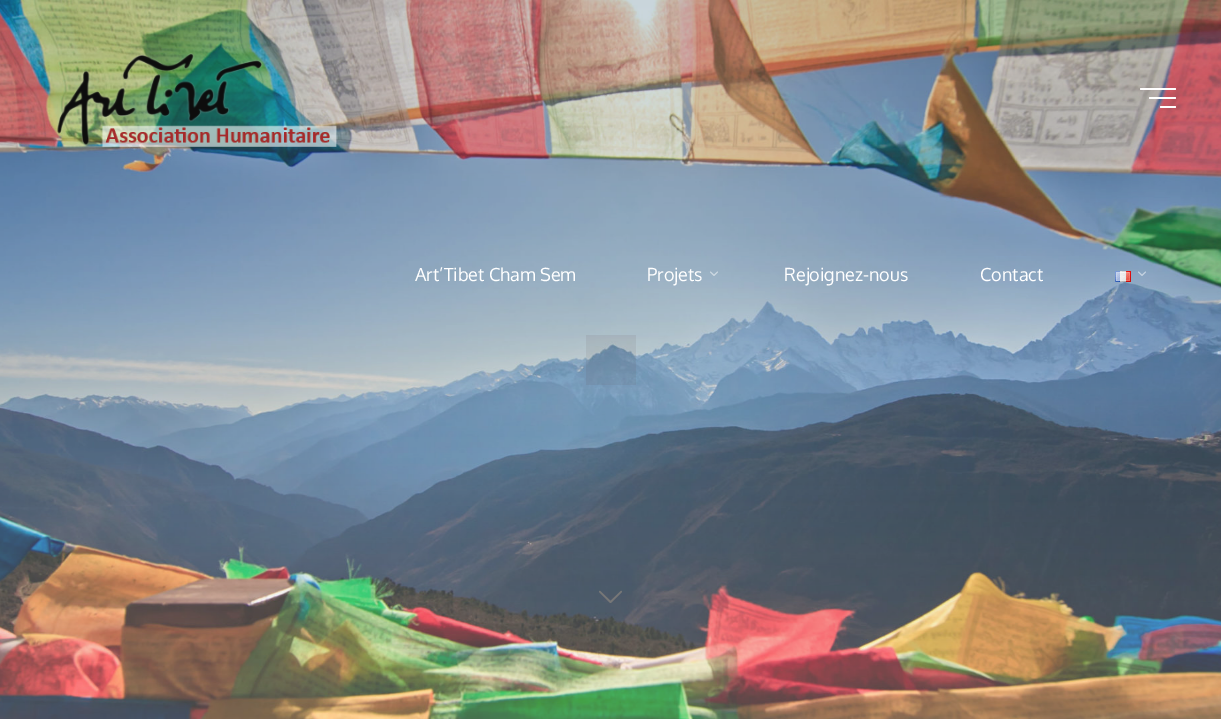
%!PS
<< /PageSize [1221 719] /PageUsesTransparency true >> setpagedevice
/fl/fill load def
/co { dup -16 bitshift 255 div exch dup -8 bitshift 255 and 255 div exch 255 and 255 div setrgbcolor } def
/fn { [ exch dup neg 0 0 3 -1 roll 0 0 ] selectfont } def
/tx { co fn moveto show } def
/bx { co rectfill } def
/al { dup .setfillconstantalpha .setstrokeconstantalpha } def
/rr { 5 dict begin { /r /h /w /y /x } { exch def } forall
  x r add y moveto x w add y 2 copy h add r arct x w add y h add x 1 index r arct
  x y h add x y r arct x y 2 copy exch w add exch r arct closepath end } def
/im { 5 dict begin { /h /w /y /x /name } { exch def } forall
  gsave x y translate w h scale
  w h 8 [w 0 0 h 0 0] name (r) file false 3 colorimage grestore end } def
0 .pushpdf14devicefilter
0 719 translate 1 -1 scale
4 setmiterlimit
0 0 1221 719 16#FFFFFF bx
(media/1.raw) 0 0 1221 719 im
(media/2.raw) 599 590 23 13 im
(media/3.raw) 56 53 281 94 im
1140 88 36 2 1 rr fl
1149 97 27 2 1 rr fl
1160 106 16 2 1 rr fl
(media/4.raw) 710 271 8 5 im
(media/5.raw) 1115 271 16 11 im
(media/6.raw) 1138 271 8 5 im
0.05 al
586 335 50 50 16#A80000 bx
586 335 50 50 16#0F8B8D bx
1 al
(Art’Tibet Cham Sem) 415 281 /Oxygen-Regular 18 16#FFFFFF tx
(Projets) 647 281 /Oxygen-Regular 18 16#FFFFFF tx
(Rejoignez-nous) 784 281 /Oxygen-Regular 18 16#FFFFFF tx
(Contact) 980 281 /Oxygen-Regular 18 16#FFFFFF tx
.poppdf14devicefilter showpage
